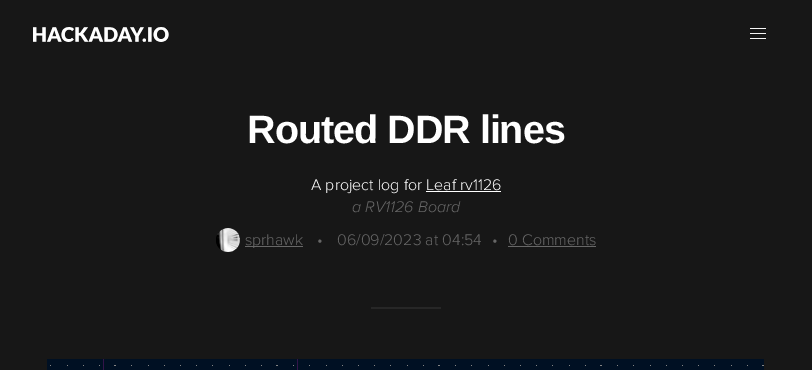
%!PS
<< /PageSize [812 370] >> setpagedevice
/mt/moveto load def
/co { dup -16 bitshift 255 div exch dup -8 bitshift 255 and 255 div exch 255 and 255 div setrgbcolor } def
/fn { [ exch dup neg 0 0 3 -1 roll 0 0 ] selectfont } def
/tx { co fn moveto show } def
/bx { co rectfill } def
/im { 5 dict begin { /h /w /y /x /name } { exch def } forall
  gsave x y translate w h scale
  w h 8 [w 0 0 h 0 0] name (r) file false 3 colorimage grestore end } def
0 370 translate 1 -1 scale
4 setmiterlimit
0 0 812 370 16#171717 bx
(media/1.raw) 33 27 136 15 im
750 28 16 1 16#F5F5F5 bx
750 33 16 1 16#F5F5F5 bx
750 38 16 1 16#F5F5F5 bx
426 191 75 1 16#FFFFFF bx
(media/2.raw) 216 228 24 24 im
245 246 58 1 16#676767 bx
508 246 88 1 16#676767 bx
371 307 70 2 16#272727 bx
(media/3.raw) 47 359 717 11 im
/LiberationSans-Bold 39.5 fn
16#FFFFFF co
247 143 mt -1 0 (Routed DDR lines) ashow
(A project log for Leaf rv1126) 311 190 /ProximaNova-Light 16 16#FFFFFF tx
(a RV1126 Board) 352 212 /ProximaNova-LightItalic 16 16#676767 tx
(sprhawk) 245 245 /ProximaNova-Light 16 16#676767 tx
(•) 317 245 /ProximaNova-Light 16 16#676767 tx
(06/09/2023 at 04:54) 337 245 /ProximaNova-Light 16 16#676767 tx
(•) 492 245 /ProximaNova-Light 16 16#676767 tx
(0 Comments) 508 245 /ProximaNova-Light 16 16#676767 tx
showpage
